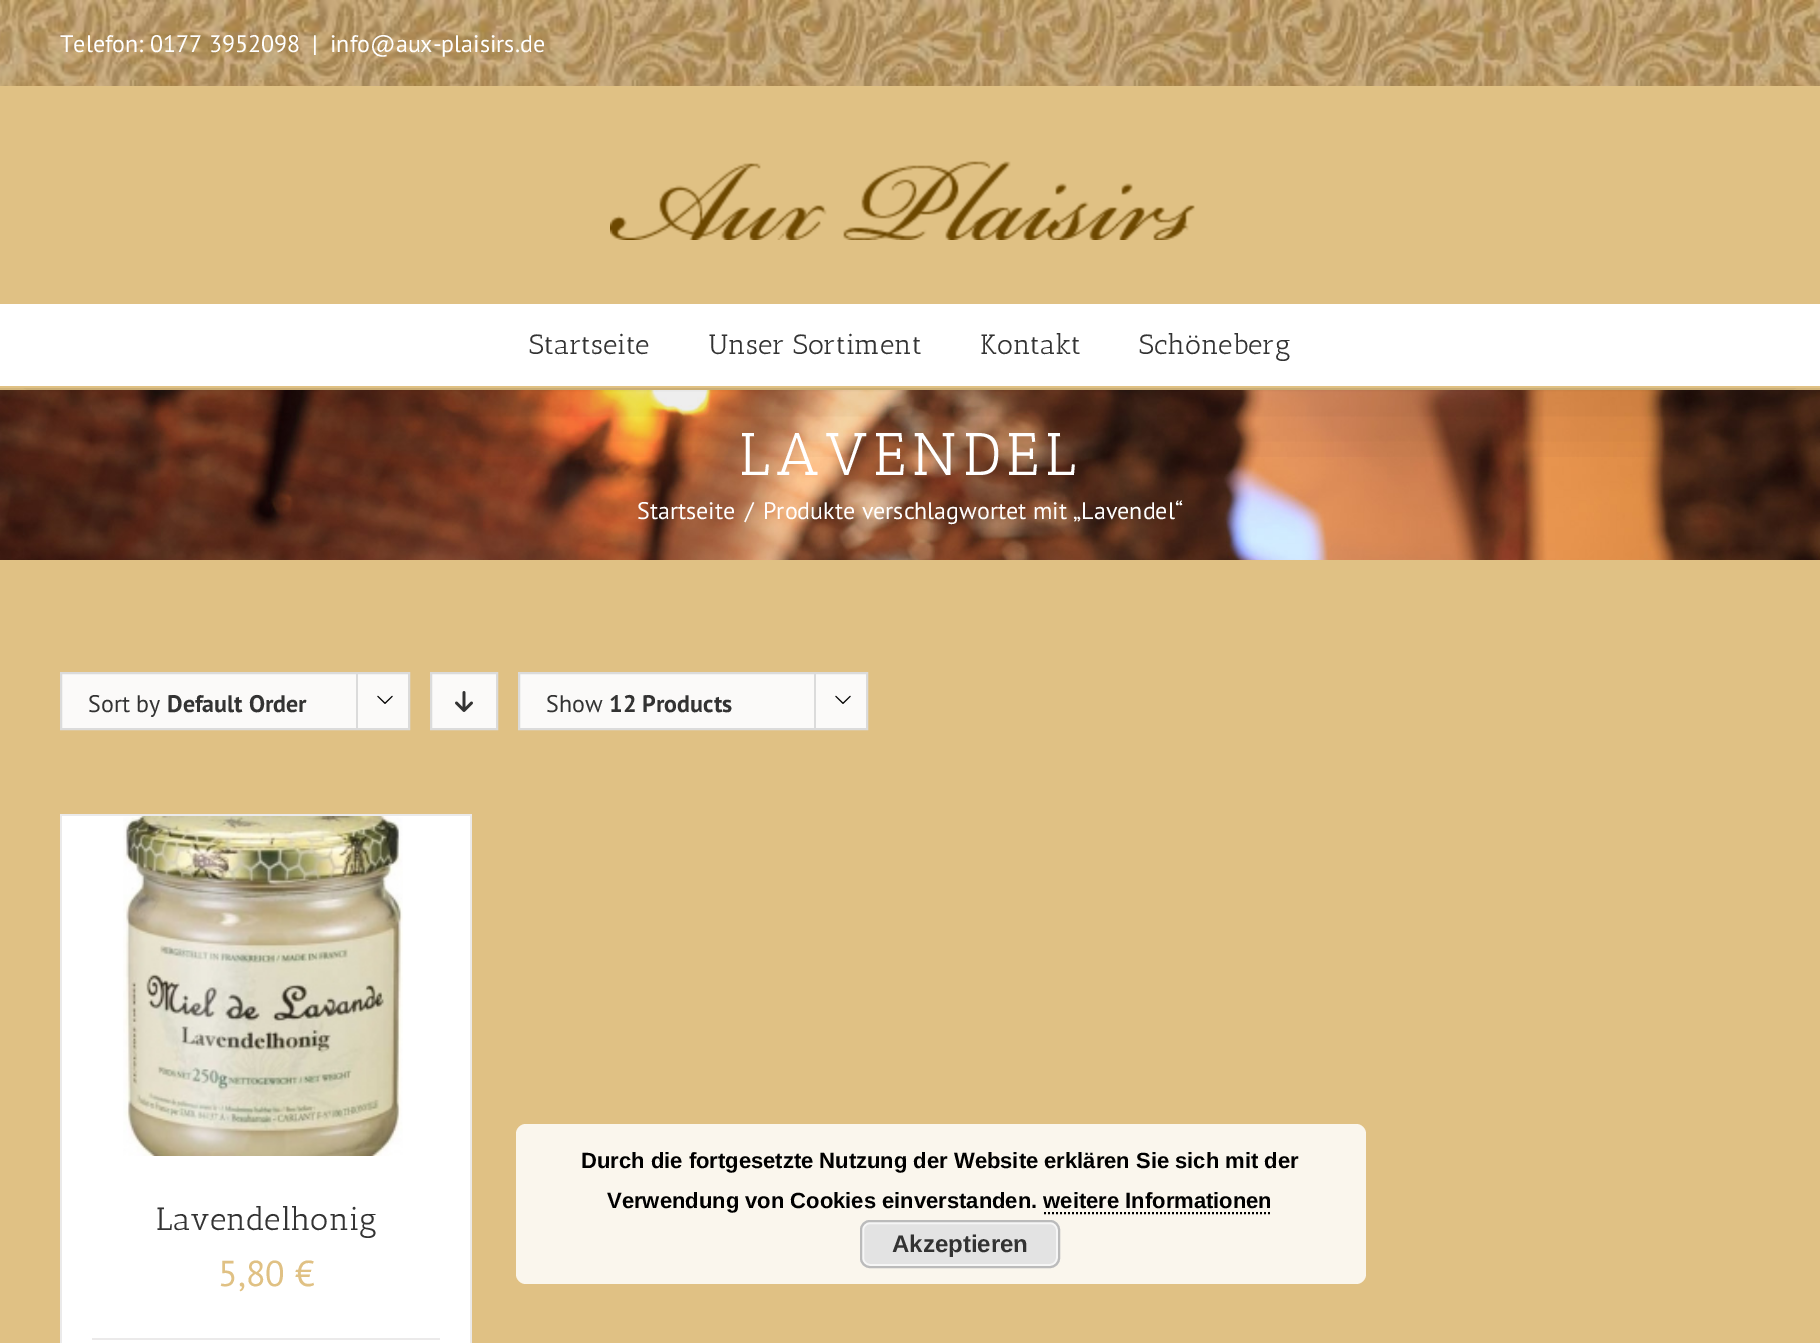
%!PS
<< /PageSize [1820 1343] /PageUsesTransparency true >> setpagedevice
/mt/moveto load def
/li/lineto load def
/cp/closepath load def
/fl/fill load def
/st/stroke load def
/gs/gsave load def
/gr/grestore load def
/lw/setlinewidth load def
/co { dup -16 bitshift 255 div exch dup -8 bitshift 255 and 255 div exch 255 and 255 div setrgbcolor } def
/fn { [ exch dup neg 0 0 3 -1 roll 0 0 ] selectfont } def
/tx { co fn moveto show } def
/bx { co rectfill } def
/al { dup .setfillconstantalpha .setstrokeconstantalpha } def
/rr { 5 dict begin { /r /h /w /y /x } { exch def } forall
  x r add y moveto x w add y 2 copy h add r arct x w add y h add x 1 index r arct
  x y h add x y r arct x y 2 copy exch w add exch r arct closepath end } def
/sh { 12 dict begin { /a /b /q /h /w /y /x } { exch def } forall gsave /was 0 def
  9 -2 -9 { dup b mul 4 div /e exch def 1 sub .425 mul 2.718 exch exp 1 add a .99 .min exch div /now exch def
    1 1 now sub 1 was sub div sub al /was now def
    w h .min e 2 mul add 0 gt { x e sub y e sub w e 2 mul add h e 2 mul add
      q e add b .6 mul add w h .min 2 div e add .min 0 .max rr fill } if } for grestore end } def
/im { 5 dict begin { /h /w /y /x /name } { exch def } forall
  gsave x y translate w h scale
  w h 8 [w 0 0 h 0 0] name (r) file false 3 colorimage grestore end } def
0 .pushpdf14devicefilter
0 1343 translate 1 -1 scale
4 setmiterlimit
0 0 1820 1343 16#E0C184 bx
(media/1.raw) 0 0 1820 86 im
(media/2.raw) 610 161 585 79 im
0 304 1820 82 16#FFFFFF bx
(media/3.raw) 0 390 1820 170 im
gs
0 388 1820 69 rectclip
16#000000 co
4 24 1812 380 0 50 .14 sh
gr
16#FBFAF9 co
61 673 mt 409 673 li 409 729 li 61 729 li cp gs fl gr
16#DBDBDB co
2 lw
st
356 672 2 58 16#DBDBDB bx
(media/4.raw) 377 695 16 9 im
16#FBFAF9 co
431 673 mt 497 673 li 497 729 li 431 729 li cp gs fl gr
16#DBDBDB co
st
(media/5.raw) 455 691 18 21 im
16#FBFAF9 co
519 673 mt 867 673 li 867 729 li 519 729 li cp gs fl gr
16#DBDBDB co
st
814 672 2 58 16#DBDBDB bx
(media/4.raw) 835 695 16 9 im
62 816 408 527 16#FFFFFF bx
60 814 412 2 16#EBEAEA bx
470 814 2 529 16#EBEAEA bx
60 814 2 529 16#EBEAEA bx
(media/6.raw) 123 816 280 340 im
92 1338 348 2 16#EBEAEA bx
16#FAF6ED co
516 1124 850 160 10 rr fl
16#000000 co
[2 2] 0 setdash
1044 1213 mt 1272 1213 li st
16#E3E3E3 co
860 1220 200 48 10 rr fl
16#F6F6F6 co
[] 0 setdash
863 1223 194 42 7 rr st
16#BBBBBB co
861 1221 198 46 9 rr st
(Telefon: 0177 3952098) 60 52 /PTSans-Regular 24 16#FFFFFF tx
(|) 312 52 /PTSans-Regular 24 16#FFFFFF tx
(info@aux-plaisirs.de) 330 52 /PTSans-Regular 24 16#FFFFFF tx
(Startseite) 529 354 /AnticSlab-Regular 28 16#333333 tx
(Unser Sortiment) 708 354 /AnticSlab-Regular 28 16#333333 tx
(Kontakt) 980 354 /AnticSlab-Regular 28 16#333333 tx
(Schöneberg) 1139 354 /AnticSlab-Regular 28 16#333333 tx
/AnticSlab-Regular 60 fn
16#FFFFFF co
739 475 mt 6 0 (LAVENDEL) ashow
(Startseite) 637 519 /PTSans-Regular 24 16#FFFFFF tx
(/) 745 519 /PTSans-Regular 24 16#FFFFFF tx
(Produkte verschlagwortet mit „Lavendel“) 763 519 /PTSans-Regular 24 16#FFFFFF tx
(Sort by) 88 712 /PTSans-Regular 24 16#333333 tx
(Default Order) 167 712 /PTSans-Bold 24 16#333333 tx
(Show) 546 712 /PTSans-Regular 24 16#333333 tx
(12 Products) 609 712 /PTSans-Bold 24 16#333333 tx
(Lavendelhonig) 156 1230 /AnticSlab-Regular 32 16#333333 tx
(5,80 €) 218 1286 /PTSans-Regular 36 16#E0C184 tx
(Durch die fortgesetzte Nutzung der Website erklären Sie sich mit der) 581 1168 /LiberationSans-Bold 22 16#000000 tx
(Verwendung von Cookies einverstanden. weitere Informationen) 607 1208 /LiberationSans-Bold 22 16#000000 tx
(Akzeptieren) 892 1252 /LiberationSans-Bold 24 16#333333 tx
.poppdf14devicefilter showpage
